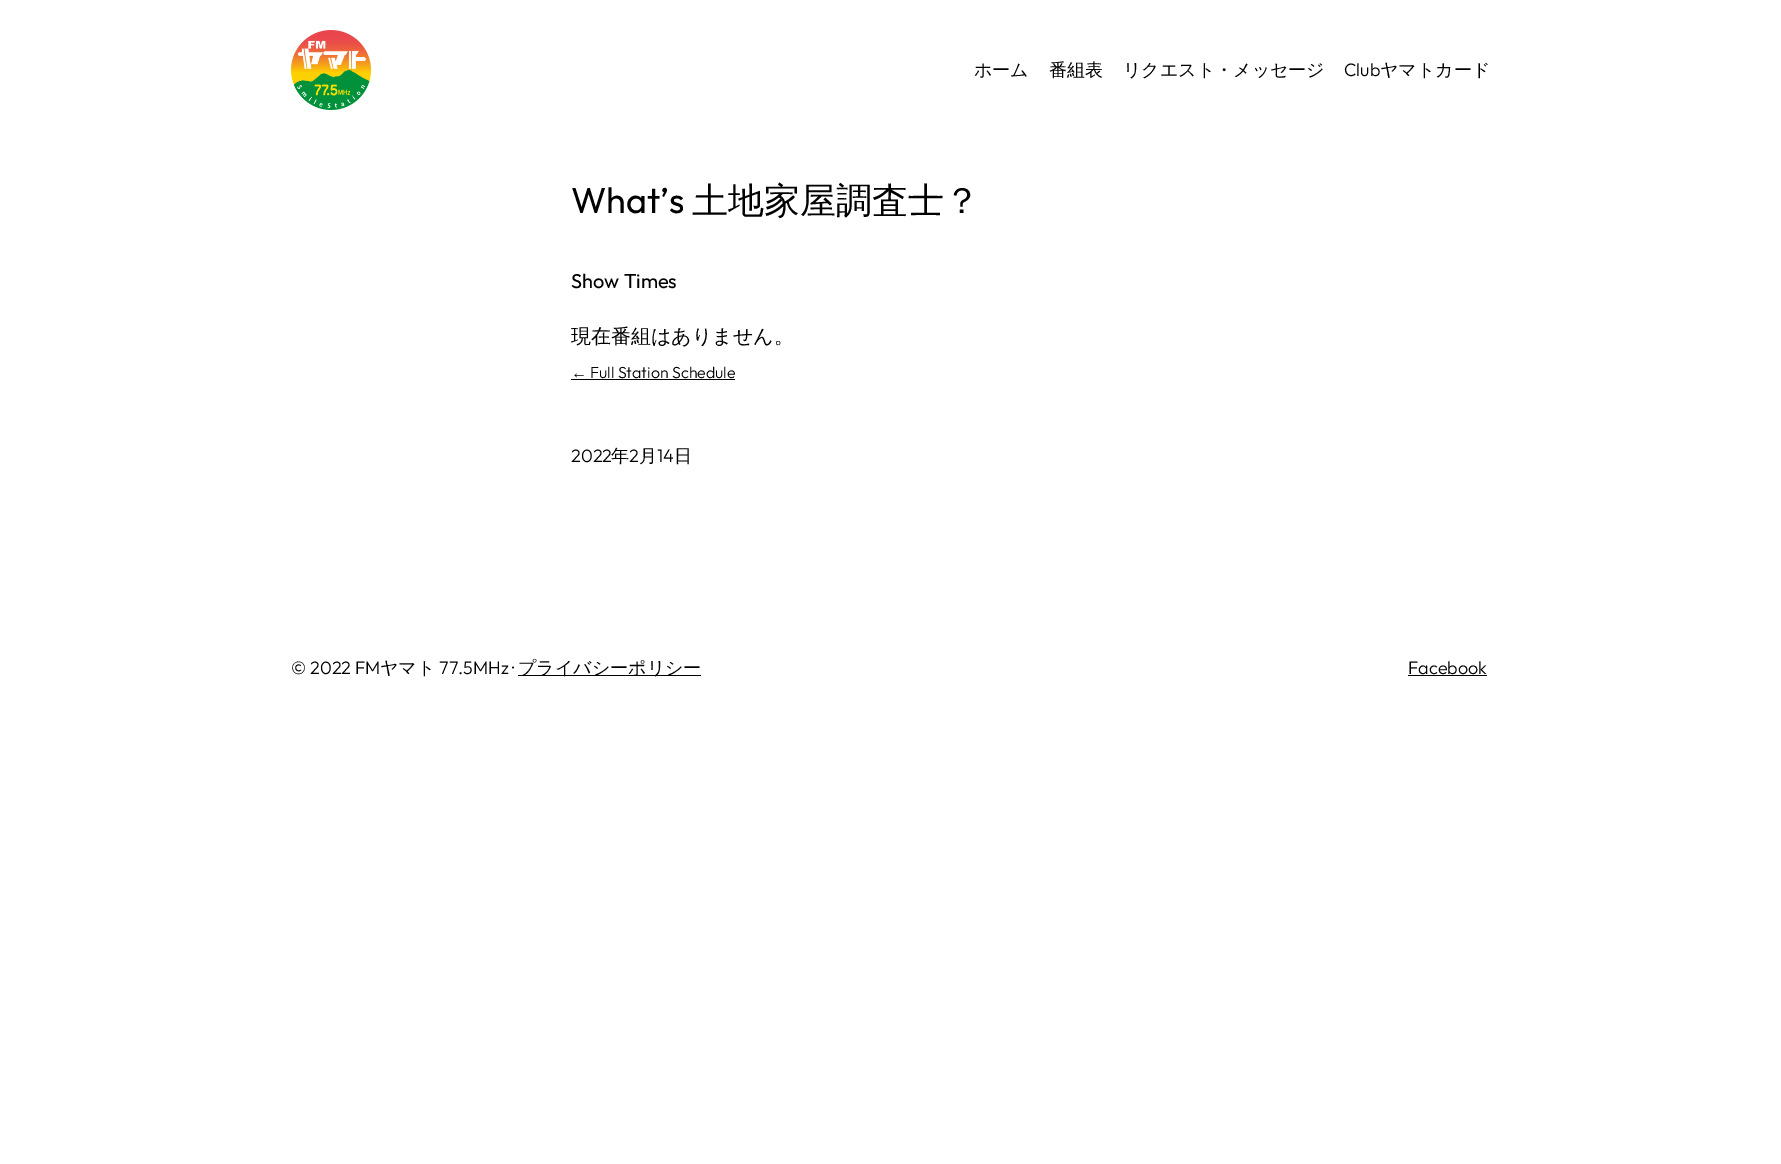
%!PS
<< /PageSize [1781 1164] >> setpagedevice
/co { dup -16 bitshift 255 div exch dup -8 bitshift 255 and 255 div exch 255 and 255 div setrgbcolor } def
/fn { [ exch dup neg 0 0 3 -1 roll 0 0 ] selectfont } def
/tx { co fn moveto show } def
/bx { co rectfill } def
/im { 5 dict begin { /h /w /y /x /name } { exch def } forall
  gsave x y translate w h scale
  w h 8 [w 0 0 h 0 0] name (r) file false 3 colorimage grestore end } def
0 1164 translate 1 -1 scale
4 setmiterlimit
0 0 1781 1164 16#FFFFFF bx
(media/1.raw) 291 30 80 80 im
571 379 164 1 16#000000 bx
518 675 183 1 16#000000 bx
1408 675 79 1 16#000000 bx
(ホーム) 974 76 /WenQuanYiZenHei-Medium 18 16#000000 tx
(番組表) 1049 76 /WenQuanYiZenHei-Medium 18 16#000000 tx
(リクエスト・メッセージ) 1123 76 /WenQuanYiZenHei-Medium 18 16#000000 tx
(Club) 1344 76 /Outfit-Light 18 16#000000 tx
(ヤマトカード) 1380 76 /WenQuanYiZenHei-Medium 18 16#000000 tx
(What’s) 571 213 /Outfit-Regular 36 16#000000 tx
(土地家屋調査士？) 692 213 /WenQuanYiZenHei-Medium 36 16#000000 tx
(Show Times) 571 288 /Outfit-Regular 20 16#000000 tx
(現在番組はありません。) 571 343 /WenQuanYiZenHei-Medium 20 16#000000 tx
(←) 571 378 /LiberationSans-Regular 16 16#000000 tx
(Full Station Schedule) 590 378 /Outfit-Light 16 16#000000 tx
(2022) 571 462 /Outfit-Light 18 16#000000 tx
(年) 611 462 /WenQuanYiZenHei-Medium 18 16#000000 tx
(2) 629 462 /Outfit-Light 18 16#000000 tx
(月) 639 462 /WenQuanYiZenHei-Medium 18 16#000000 tx
(14) 657 462 /Outfit-Light 18 16#000000 tx
(日) 674 462 /WenQuanYiZenHei-Medium 18 16#000000 tx
(© 2022 FM) 291 674 /Outfit-Light 18 16#000000 tx
(ヤマト) 380 674 /WenQuanYiZenHei-Medium 18 16#000000 tx
(77.5MHz ·) 439 674 /Outfit-Light 18 16#000000 tx
(プライバシーポリシー) 518 674 /WenQuanYiZenHei-Medium 18 16#000000 tx
(Facebook) 1408 674 /Outfit-Light 18 16#000000 tx
showpage
